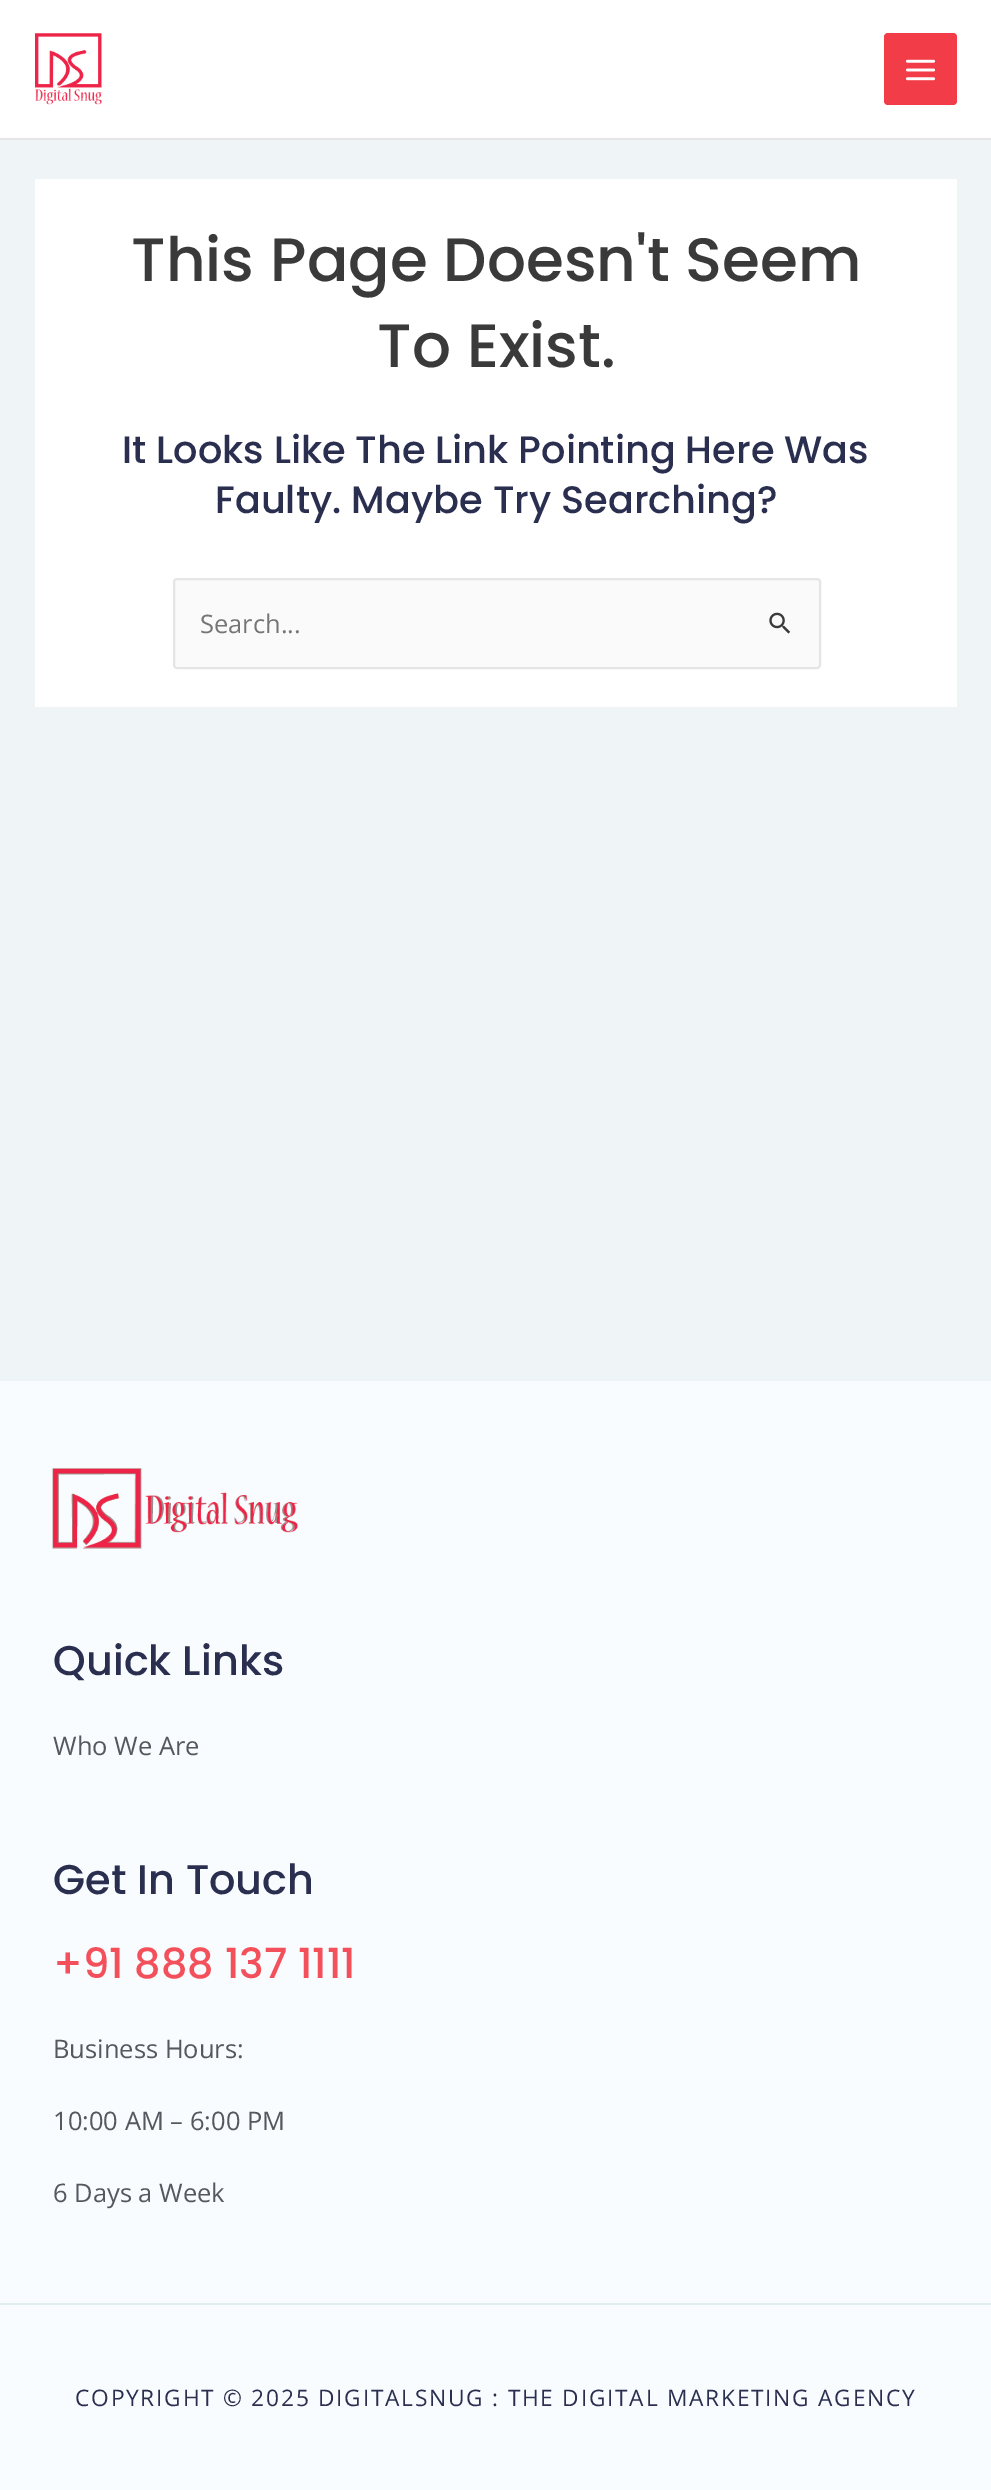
%!PS
<< /PageSize [991 2490] >> setpagedevice
/mt/moveto load def
/fl/fill load def
/st/stroke load def
/gs/gsave load def
/gr/grestore load def
/lw/setlinewidth load def
/co { dup -16 bitshift 255 div exch dup -8 bitshift 255 and 255 div exch 255 and 255 div setrgbcolor } def
/fn { [ exch dup neg 0 0 3 -1 roll 0 0 ] selectfont } def
/tx { co fn moveto show } def
/bx { co rectfill } def
/rr { 5 dict begin { /r /h /w /y /x } { exch def } forall
  x r add y moveto x w add y 2 copy h add r arct x w add y h add x 1 index r arct
  x y h add x y r arct x y 2 copy exch w add exch r arct closepath end } def
/im { 5 dict begin { /h /w /y /x /name } { exch def } forall
  gsave x y translate w h scale
  w h 8 [w 0 0 h 0 0] name (r) file false 3 colorimage grestore end } def
0 2490 translate 1 -1 scale
4 setmiterlimit
0 0 991 2490 16#EFF5F7 bx
0 0 991 138 16#FFFFFF bx
0 138 991 2 16#E5E5E5 bx
(media/1.raw) 35 33 67 72 im
16#F23D49 co
884 33 73 72 4 rr fl
(media/2.raw) 905 59 31 22 im
35 179 922 528 16#FFFFFF bx
16#FAFAFA co
174 579 646 89 3 rr gs fl gr
16#E5E5E5 co
2 lw
st
(media/3.raw) 769 612 22 22 im
0 1381 991 922 16#F8FCFE bx
0 1379 991 2 16#ECF4F7 bx
(media/4.raw) 52 1468 246 81 im
0 2305 991 185 16#F8FCFE bx
0 2303 991 2 16#E1EDF0 bx
(This Page Doesn't Seem) 131 281 /Poppins-Medium 61.25 16#3A3A3A tx
(To Exist.) 377 367 /Poppins-Medium 61.25 16#3A3A3A tx
(It Looks Like The Link Pointing Here Was) 122 463 /Poppins-Medium 38.25 16#2A2F4F tx
(Faulty. Maybe Try Searching?) 215 513 /Poppins-Medium 38.25 16#2A2F4F tx
(Search...) 200 633 /OpenSans-Regular 25.5 16#757575 tx
(Quick Links) 53 1675 /Poppins-Medium 41.5 16#2A2F4F tx
(Who We Are) 53 1755 /OpenSans-Regular 25.5 16#54595F tx
(Get In Touch) 53 1894 /Poppins-Medium 41.5 16#2A2F4F tx
(+91 888 137 1111) 53 1978 /Poppins-Medium 41.5 16#F3505B tx
(Business Hours:) 53 2058 /OpenSans-Regular 25.5 16#54595F tx
(10:00 AM – 6:00 PM) 53 2130 /OpenSans-Regular 25.5 16#54595F tx
(6 Days a Week) 53 2202 /OpenSans-Regular 25.5 16#54595F tx
/OpenSans-Regular 22.75 fn
16#2A2F4F co
75 2406 mt 1.75 0 (COPYRIGHT © 2025 DIGITALSNUG : THE DIGITAL MARKETING AGENCY) ashow
showpage
